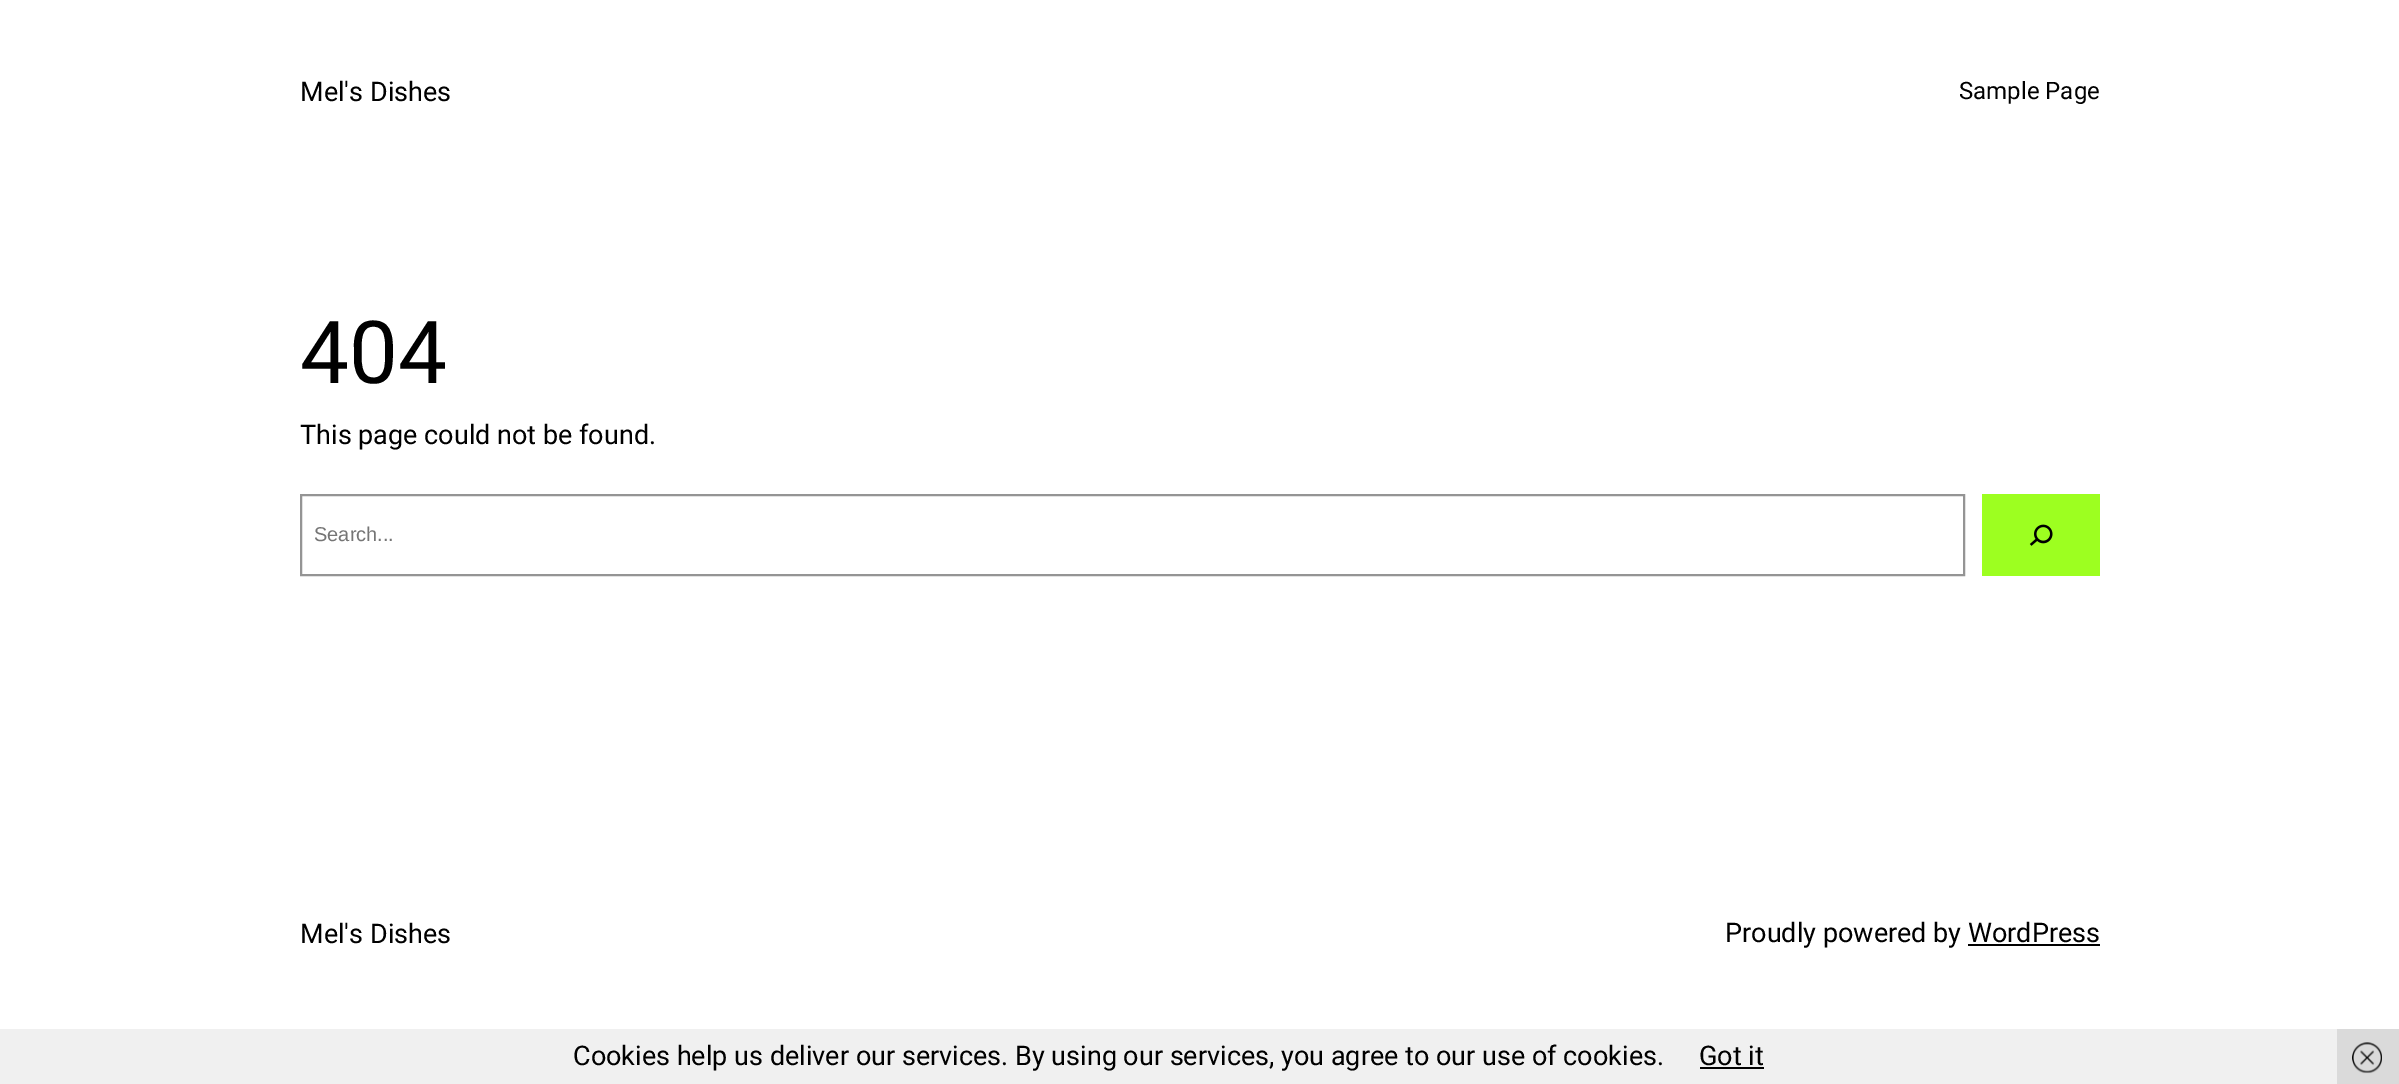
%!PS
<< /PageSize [2399 1084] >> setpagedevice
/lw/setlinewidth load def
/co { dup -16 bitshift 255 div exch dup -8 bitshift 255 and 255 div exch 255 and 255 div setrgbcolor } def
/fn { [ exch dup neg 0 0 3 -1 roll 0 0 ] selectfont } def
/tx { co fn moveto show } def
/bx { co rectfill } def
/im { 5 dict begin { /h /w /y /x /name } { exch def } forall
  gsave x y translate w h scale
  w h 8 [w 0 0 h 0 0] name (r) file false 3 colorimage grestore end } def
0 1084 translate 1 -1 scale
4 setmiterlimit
0 0 2399 1084 16#FFFFFF bx
16#949494 co
2 lw
301 495 1663 80 rectstroke
1982 494 118 82 16#9DFF20 bx
(media/1.raw) 2029 524 24 22 im
1968 944 132 2 16#000000 bx
0 1029 2337 55 16#F0F0F0 bx
1700 1067 64 2 16#000000 bx
2337 1029 62 55 16#DADADA bx
(media/2.raw) 2352 1042 30 32 im
(Mel's Dishes) 300 101 /Roboto-Regular 27 16#000000 tx
(Sample Page) 1959 99 /Roboto-Regular 24 16#000000 tx
(404) 300 383 /Roboto-Regular 87 16#000000 tx
(This page could not be found.) 300 444 /Roboto-Regular 27 16#000000 tx
(Search...) 314 541 /LiberationSans-Regular 20 16#757575 tx
(Mel's Dishes) 300 943 /Roboto-Regular 27 16#000000 tx
(Proudly powered by WordPress) 1725 942 /Roboto-Regular 27 16#000000 tx
(Cookies help us deliver our services. By using our services, you agree to our use of cookies.) 573 1065 /Roboto-Regular 27 16#000000 tx
(Got it) 1699 1065 /Roboto-Regular 27 16#000000 tx
showpage
